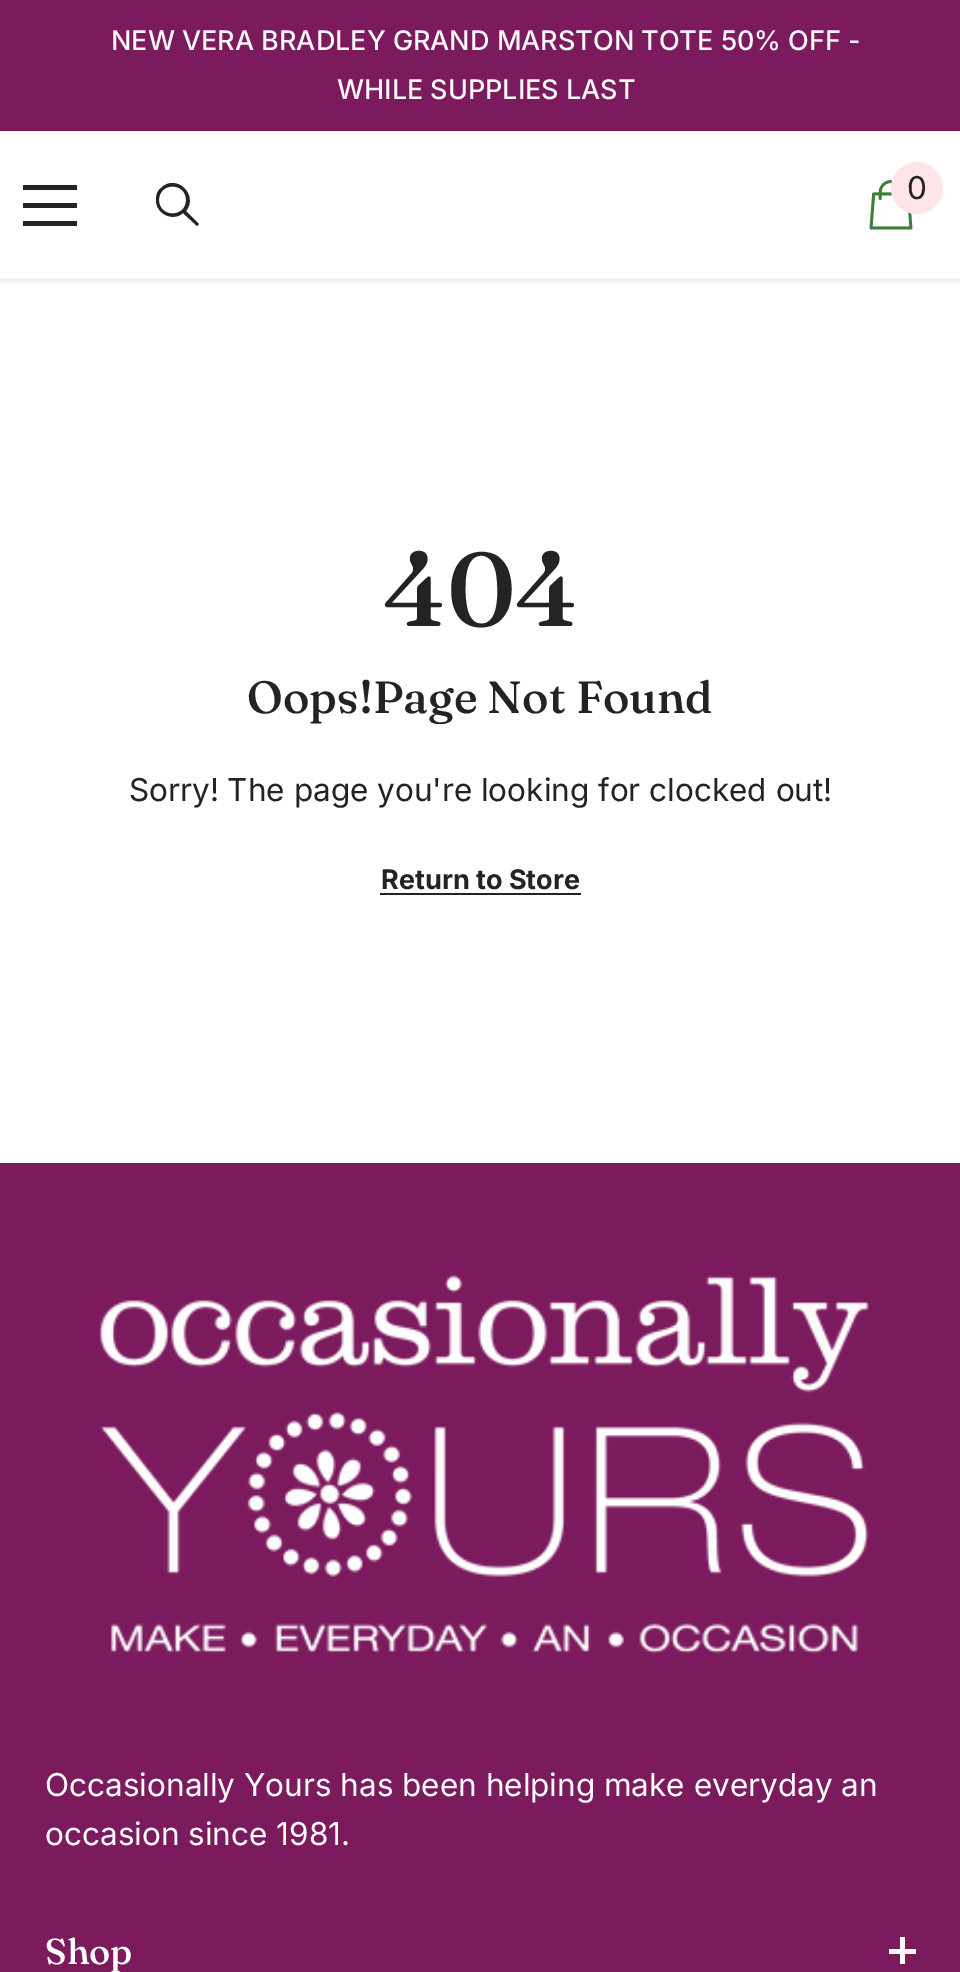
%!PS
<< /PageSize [960 1972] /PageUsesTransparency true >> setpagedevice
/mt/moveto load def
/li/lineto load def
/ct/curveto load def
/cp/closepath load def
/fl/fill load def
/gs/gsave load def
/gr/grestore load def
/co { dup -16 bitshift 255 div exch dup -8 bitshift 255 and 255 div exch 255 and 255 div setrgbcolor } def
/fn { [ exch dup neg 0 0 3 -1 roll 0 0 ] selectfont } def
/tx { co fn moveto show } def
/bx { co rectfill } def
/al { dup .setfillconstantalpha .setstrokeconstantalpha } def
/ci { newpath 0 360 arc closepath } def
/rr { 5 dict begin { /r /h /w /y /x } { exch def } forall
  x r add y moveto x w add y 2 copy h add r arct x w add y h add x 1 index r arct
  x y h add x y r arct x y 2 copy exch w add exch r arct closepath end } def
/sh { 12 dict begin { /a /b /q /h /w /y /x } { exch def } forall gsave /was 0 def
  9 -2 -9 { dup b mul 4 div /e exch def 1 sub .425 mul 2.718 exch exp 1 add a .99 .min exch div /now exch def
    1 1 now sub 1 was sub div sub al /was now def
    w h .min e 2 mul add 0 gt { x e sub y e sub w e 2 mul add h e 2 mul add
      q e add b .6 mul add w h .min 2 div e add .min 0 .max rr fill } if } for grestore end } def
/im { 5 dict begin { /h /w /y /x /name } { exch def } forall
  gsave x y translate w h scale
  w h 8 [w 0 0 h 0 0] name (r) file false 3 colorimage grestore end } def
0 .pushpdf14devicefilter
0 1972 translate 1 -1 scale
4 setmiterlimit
0 0 960 1972 16#FFFFFF bx
0 0 960 131 16#7C1A5E bx
gs
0 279 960 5 rectclip
16#000000 co
0 133 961 148 0 3.5 .1 sh
gr
23 203 54 5 16#232323 bx
23 185 54 5 16#232323 bx
23 221 54 5 16#232323 bx
156 200 mt 156 214 173 222 183 213 ct 197 226 li 199 224 li 186 211 li 199 195 176 173 161 188 ct 157 191 156 195 156 200 ct cp 159 200 mt 159 182 186 182 186 200 ct 186 218 159 218 159 200 ct cp fl
(media/1.raw) 869 180 44 50 im
16#FFE5E8 co
917 188 26 ci fl
380 893 201 2 16#232323 bx
0 1163 960 809 16#7C1A5E bx
(media/2.raw) 99 1275 770 379 im
900 1937 5 27 16#FFFFFF bx
889 1949 27 5 16#FFFFFF bx
(NEW VERA BRADLEY GRAND MARSTON TOTE 50% OFF -) 111 50 /Inter-Medium 27 16#F8F8F8 tx
(WHILE SUPPLIES LAST) 337 99 /Inter-Medium 27 16#F8F8F8 tx
(0) 907 199 /Inter-Regular 31.5 16#232323 tx
(404) 383 626 /Fraunces-Medium 104 16#232323 tx
(Oops!Page Not Found) 247 713 /Fraunces-Medium 45 16#232323 tx
(Sorry! The page you're looking for clocked out!) 129 801 /Inter-Regular 31.5 16#232323 tx
(Return to Store) 381 889 /Inter-Bold 27 16#232323 tx
(Occasionally Yours has been helping make everyday an) 45 1796 /Inter-Regular 31.5 16#FFFFFF tx
(occasion since 1981.) 45 1845 /Inter-Regular 31.5 16#FFFFFF tx
(Shop) 45 1964 /Fraunces-Medium 36 16#FFFFFF tx
.poppdf14devicefilter showpage
